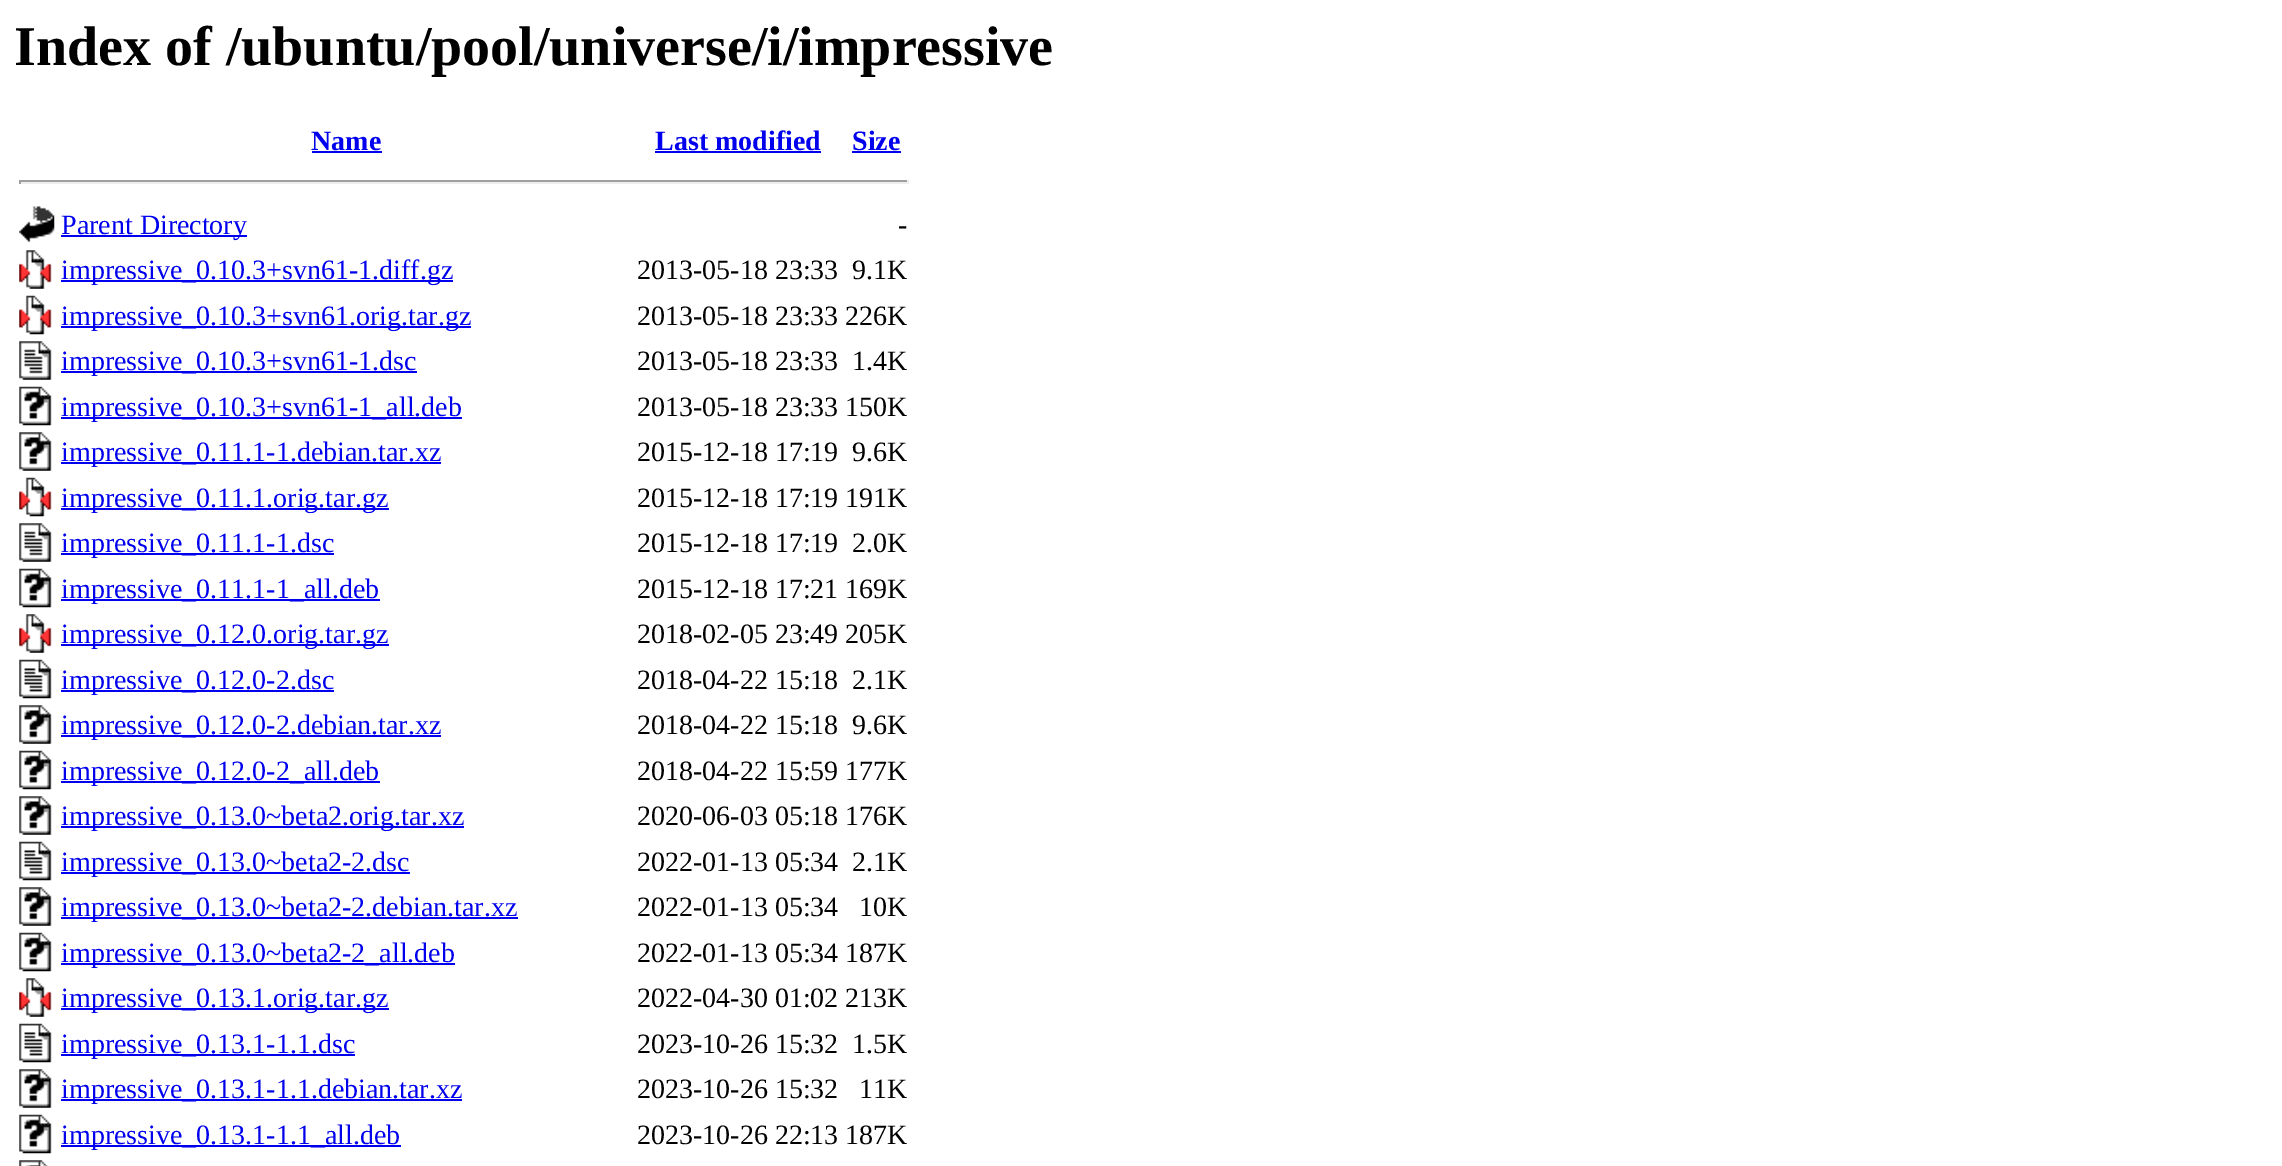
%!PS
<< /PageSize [2282 1166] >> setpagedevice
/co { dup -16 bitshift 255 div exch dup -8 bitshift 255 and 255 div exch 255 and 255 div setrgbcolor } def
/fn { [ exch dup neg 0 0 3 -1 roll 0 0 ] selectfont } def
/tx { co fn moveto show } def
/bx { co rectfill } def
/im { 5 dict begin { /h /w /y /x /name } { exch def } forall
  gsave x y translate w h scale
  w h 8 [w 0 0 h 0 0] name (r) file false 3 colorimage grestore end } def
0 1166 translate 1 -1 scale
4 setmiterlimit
0 0 2282 1166 16#FFFFFF bx
312 151 70 2 16#0000EE bx
655 151 166 2 16#0000EE bx
852 151 49 2 16#0000EE bx
19 180 889 2 16#9F9F9F bx
907 180 2 4 16#EEEEEE bx
19 182 889 2 16#EEEEEE bx
19 180 2 4 16#9F9F9F bx
(media/1.raw) 19 206 36 36 im
61 235 186 2 16#0000EE bx
(media/2.raw) 19 250 33 39 im
61 280 392 2 16#0000EE bx
(media/3.raw) 19 295 33 40 im
61 326 410 2 16#0000EE bx
(media/4.raw) 19 341 33 39 im
61 371 356 2 16#0000EE bx
(media/5.raw) 19 386 33 40 im
61 417 401 2 16#0000EE bx
(media/6.raw) 19 432 33 39 im
61 462 380 2 16#0000EE bx
(media/3.raw) 19 477 33 40 im
61 508 328 2 16#0000EE bx
(media/4.raw) 19 523 33 39 im
61 553 273 2 16#0000EE bx
(media/5.raw) 19 568 33 40 im
61 599 319 2 16#0000EE bx
(media/2.raw) 19 614 33 39 im
61 644 328 2 16#0000EE bx
(media/7.raw) 19 659 33 40 im
61 690 273 2 16#0000EE bx
(media/6.raw) 19 705 33 39 im
61 735 380 2 16#0000EE bx
(media/5.raw) 19 750 33 40 im
61 781 319 2 16#0000EE bx
(media/6.raw) 19 796 33 39 im
61 826 403 2 16#0000EE bx
(media/7.raw) 19 841 33 40 im
61 872 349 2 16#0000EE bx
(media/6.raw) 19 887 33 39 im
61 917 457 2 16#0000EE bx
(media/5.raw) 19 932 33 40 im
61 963 394 2 16#0000EE bx
(media/2.raw) 19 978 33 39 im
61 1008 328 2 16#0000EE bx
(media/7.raw) 19 1023 33 40 im
61 1054 294 2 16#0000EE bx
(media/6.raw) 19 1069 33 39 im
61 1099 401 2 16#0000EE bx
(media/5.raw) 19 1114 33 40 im
61 1145 340 2 16#0000EE bx
(media/8.raw) 19 1160 29 6 im
(Index of /ubuntu/pool/universe/i/impressive) 14 65 /LiberationSerif-Bold 56 16#000000 tx
(Name) 311 150 /LiberationSerif-Bold 28 16#0000EE tx
(Last modified) 655 150 /LiberationSerif-Bold 28 16#0000EE tx
(Size) 852 150 /LiberationSerif-Bold 28 16#0000EE tx
(Parent Directory) 61 234 /LiberationSerif-Regular 28 16#0000EE tx
(-) 898 234 /LiberationSerif-Regular 28 16#000000 tx
(impressive_0.10.3+svn61-1.diff.gz) 61 279 /LiberationSerif-Regular 28 16#0000EE tx
(2013-05-18 23:33) 637 279 /LiberationSerif-Regular 28 16#000000 tx
(9.1K) 852 279 /LiberationSerif-Regular 28 16#000000 tx
(impressive_0.10.3+svn61.orig.tar.gz) 61 325 /LiberationSerif-Regular 28 16#0000EE tx
(2013-05-18 23:33 226K) 637 325 /LiberationSerif-Regular 28 16#000000 tx
(impressive_0.10.3+svn61-1.dsc) 61 370 /LiberationSerif-Regular 28 16#0000EE tx
(2013-05-18 23:33) 637 370 /LiberationSerif-Regular 28 16#000000 tx
(1.4K) 852 370 /LiberationSerif-Regular 28 16#000000 tx
(impressive_0.10.3+svn61-1_all.deb) 61 416 /LiberationSerif-Regular 28 16#0000EE tx
(2013-05-18 23:33 150K) 637 416 /LiberationSerif-Regular 28 16#000000 tx
(impressive_0.11.1-1.debian.tar.xz) 61 461 /LiberationSerif-Regular 28 16#0000EE tx
(2015-12-18 17:19) 637 461 /LiberationSerif-Regular 28 16#000000 tx
(9.6K) 852 461 /LiberationSerif-Regular 28 16#000000 tx
(impressive_0.11.1.orig.tar.gz) 61 507 /LiberationSerif-Regular 28 16#0000EE tx
(2015-12-18 17:19 191K) 637 507 /LiberationSerif-Regular 28 16#000000 tx
(impressive_0.11.1-1.dsc) 61 552 /LiberationSerif-Regular 28 16#0000EE tx
(2015-12-18 17:19) 637 552 /LiberationSerif-Regular 28 16#000000 tx
(2.0K) 852 552 /LiberationSerif-Regular 28 16#000000 tx
(impressive_0.11.1-1_all.deb) 61 598 /LiberationSerif-Regular 28 16#0000EE tx
(2015-12-18 17:21 169K) 637 598 /LiberationSerif-Regular 28 16#000000 tx
(impressive_0.12.0.orig.tar.gz) 61 643 /LiberationSerif-Regular 28 16#0000EE tx
(2018-02-05 23:49 205K) 637 643 /LiberationSerif-Regular 28 16#000000 tx
(impressive_0.12.0-2.dsc) 61 689 /LiberationSerif-Regular 28 16#0000EE tx
(2018-04-22 15:18) 637 689 /LiberationSerif-Regular 28 16#000000 tx
(2.1K) 852 689 /LiberationSerif-Regular 28 16#000000 tx
(impressive_0.12.0-2.debian.tar.xz) 61 734 /LiberationSerif-Regular 28 16#0000EE tx
(2018-04-22 15:18) 637 734 /LiberationSerif-Regular 28 16#000000 tx
(9.6K) 852 734 /LiberationSerif-Regular 28 16#000000 tx
(impressive_0.12.0-2_all.deb) 61 780 /LiberationSerif-Regular 28 16#0000EE tx
(2018-04-22 15:59 177K) 637 780 /LiberationSerif-Regular 28 16#000000 tx
(impressive_0.13.0~beta2.orig.tar.xz) 61 825 /LiberationSerif-Regular 28 16#0000EE tx
(2020-06-03 05:18 176K) 637 825 /LiberationSerif-Regular 28 16#000000 tx
(impressive_0.13.0~beta2-2.dsc) 61 871 /LiberationSerif-Regular 28 16#0000EE tx
(2022-01-13 05:34) 637 871 /LiberationSerif-Regular 28 16#000000 tx
(2.1K) 852 871 /LiberationSerif-Regular 28 16#000000 tx
(impressive_0.13.0~beta2-2.debian.tar.xz) 61 916 /LiberationSerif-Regular 28 16#0000EE tx
(2022-01-13 05:34) 637 916 /LiberationSerif-Regular 28 16#000000 tx
(10K) 859 916 /LiberationSerif-Regular 28 16#000000 tx
(impressive_0.13.0~beta2-2_all.deb) 61 962 /LiberationSerif-Regular 28 16#0000EE tx
(2022-01-13 05:34 187K) 637 962 /LiberationSerif-Regular 28 16#000000 tx
(impressive_0.13.1.orig.tar.gz) 61 1007 /LiberationSerif-Regular 28 16#0000EE tx
(2022-04-30 01:02 213K) 637 1007 /LiberationSerif-Regular 28 16#000000 tx
(impressive_0.13.1-1.1.dsc) 61 1053 /LiberationSerif-Regular 28 16#0000EE tx
(2023-10-26 15:32) 637 1053 /LiberationSerif-Regular 28 16#000000 tx
(1.5K) 852 1053 /LiberationSerif-Regular 28 16#000000 tx
(impressive_0.13.1-1.1.debian.tar.xz) 61 1098 /LiberationSerif-Regular 28 16#0000EE tx
(2023-10-26 15:32) 637 1098 /LiberationSerif-Regular 28 16#000000 tx
(11K) 859 1098 /LiberationSerif-Regular 28 16#000000 tx
(impressive_0.13.1-1.1_all.deb) 61 1144 /LiberationSerif-Regular 28 16#0000EE tx
(2023-10-26 22:13 187K) 637 1144 /LiberationSerif-Regular 28 16#000000 tx
showpage
